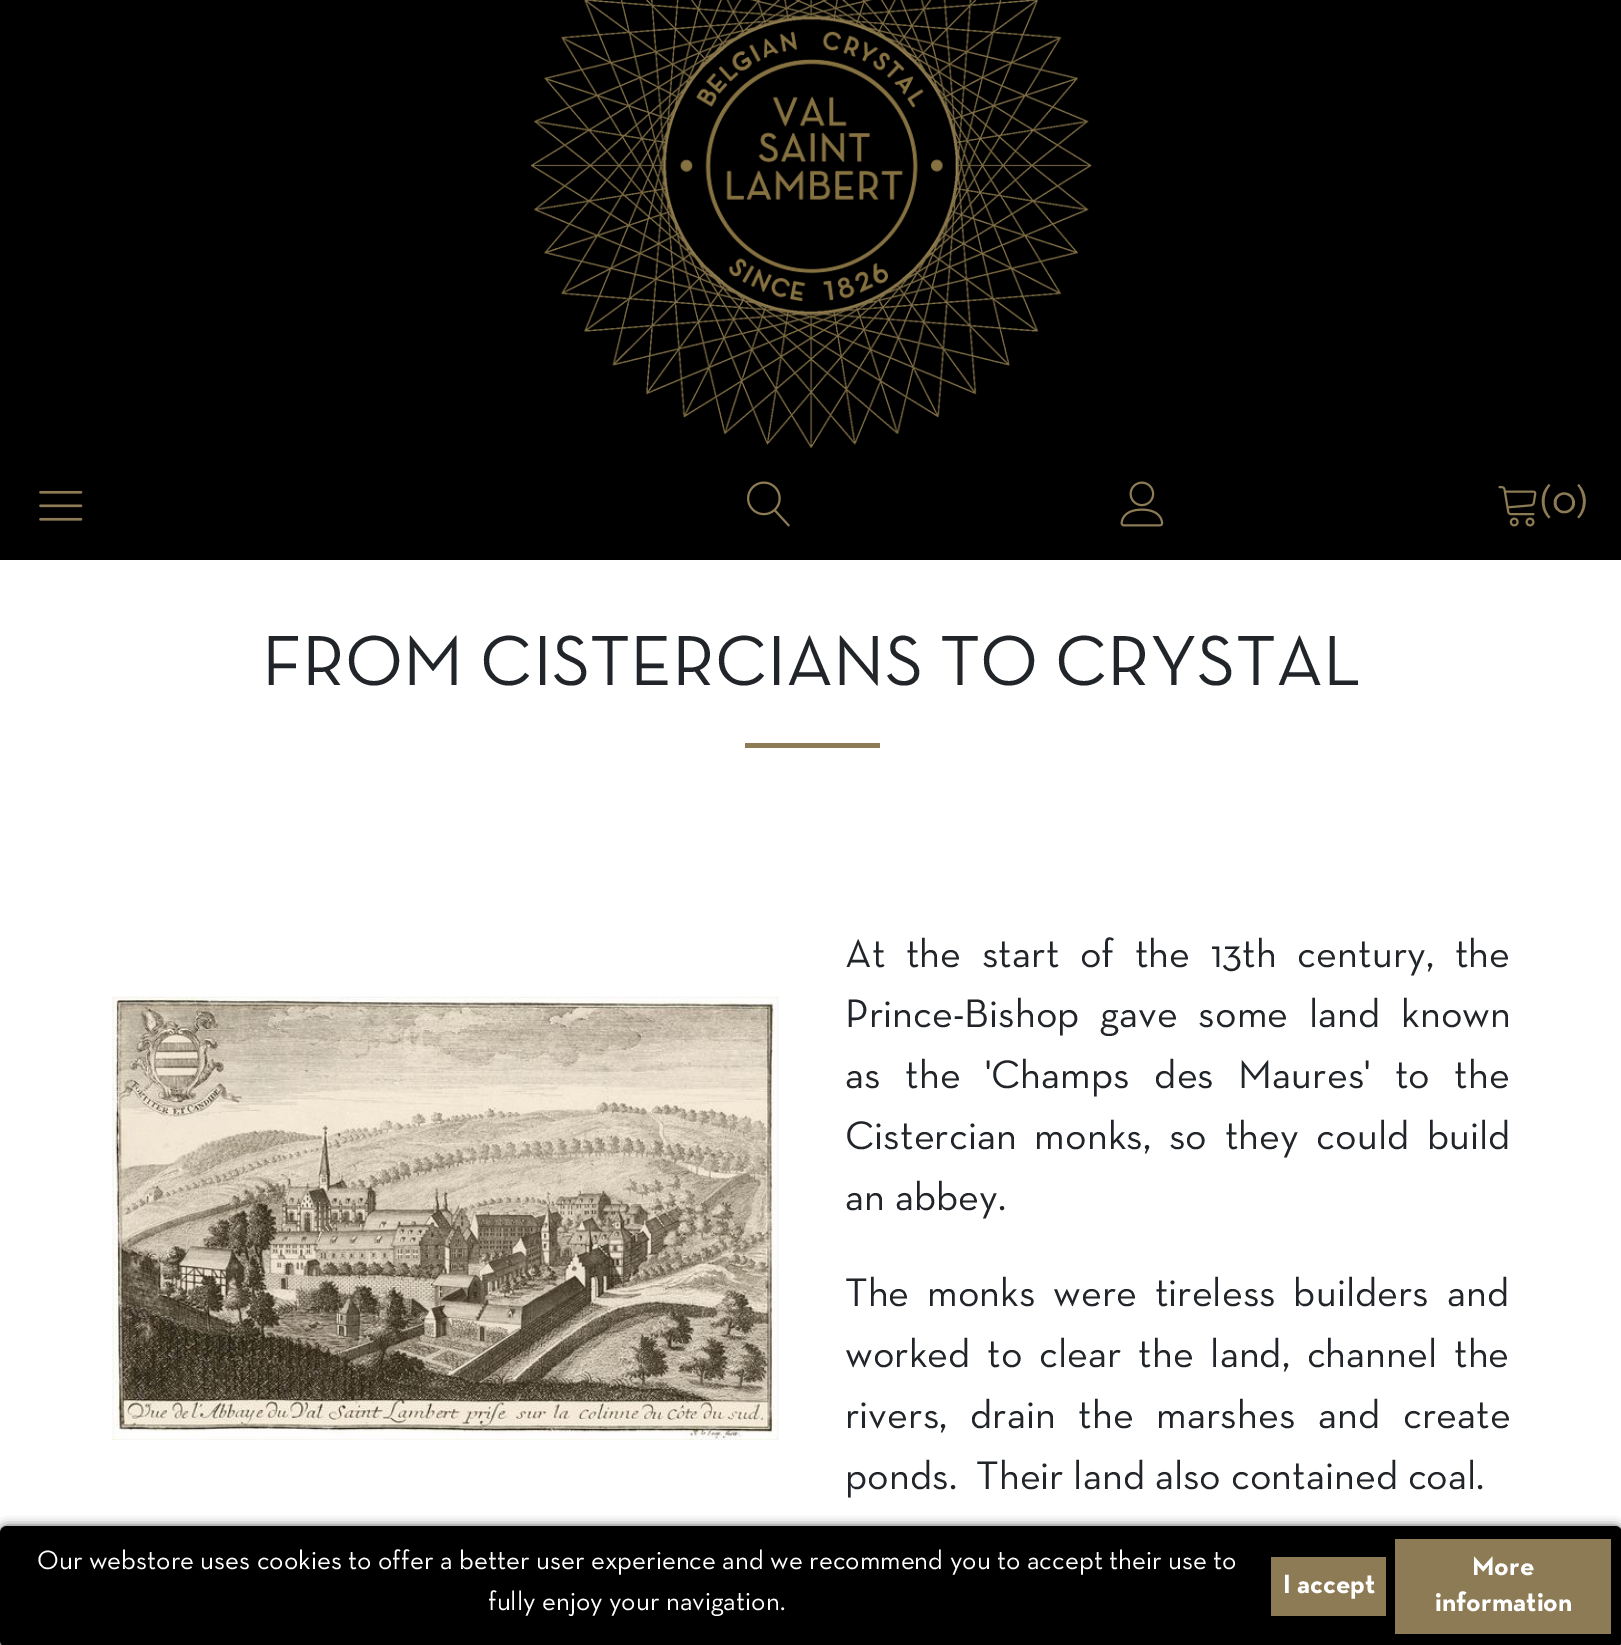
%!PS
<< /PageSize [1621 1645] /PageUsesTransparency true >> setpagedevice
/mt/moveto load def
/fl/fill load def
/st/stroke load def
/gs/gsave load def
/gr/grestore load def
/lw/setlinewidth load def
/co { dup -16 bitshift 255 div exch dup -8 bitshift 255 and 255 div exch 255 and 255 div setrgbcolor } def
/fn { [ exch dup neg 0 0 3 -1 roll 0 0 ] selectfont } def
/tx { co fn moveto show } def
/bx { co rectfill } def
/al { dup .setfillconstantalpha .setstrokeconstantalpha } def
/rr { 5 dict begin { /r /h /w /y /x } { exch def } forall
  x r add y moveto x w add y 2 copy h add r arct x w add y h add x 1 index r arct
  x y h add x y r arct x y 2 copy exch w add exch r arct closepath end } def
/sh { 12 dict begin { /a /b /q /h /w /y /x } { exch def } forall gsave /was 0 def
  9 -2 -9 { dup b mul 4 div /e exch def 1 sub .425 mul 2.718 exch exp 1 add a .99 .min exch div /now exch def
    1 1 now sub 1 was sub div sub al /was now def
    w h .min e 2 mul add 0 gt { x e sub y e sub w e 2 mul add h e 2 mul add
      q e add b .6 mul add w h .min 2 div e add .min 0 .max rr fill } if } for grestore end } def
/im { 5 dict begin { /h /w /y /x /name } { exch def } forall
  gsave x y translate w h scale
  w h 8 [w 0 0 h 0 0] name (r) file false 3 colorimage grestore end } def
0 .pushpdf14devicefilter
0 1645 translate 1 -1 scale
4 setmiterlimit
0 0 1621 1645 16#FFFFFF bx
0 0 1621 560 16#000000 bx
(media/1.raw) 531 0 561 448 im
(media/2.raw) 39 490 44 31 im
(media/3.raw) 747 481 43 46 im
(media/4.raw) 1120 481 44 46 im
(media/5.raw) 1498 486 39 41 im
0 1528 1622 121 7 5.5 1 sh
1 1527 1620 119 6 rr gs fl gr
2 lw
st
1271 1557 115 59 16#8C7B54 bx
1395 1539 216 95 16#8C7B54 bx
745 743 135 5 16#8C7B54 bx
(media/6.raw) 112 996 667 444 im
(\(0\)) 1540 513 /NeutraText-Regular 40.5 16#8C7B54 tx
(Our webstore uses cookies to offer a better user experience and we recommend you to accept their use to) 37 1569 /NeutraText-Regular 27 16#FFFFFF tx
(fully enjoy your navigation.) 488 1610 /NeutraText-Regular 27 16#FFFFFF tx
(I accept) 1283 1593 /NeutraText-Bold 27 16#FFFFFF tx
(More) 1472 1575 /NeutraText-Bold 27 16#FFFFFF tx
(information) 1435 1611 /NeutraText-Bold 27 16#FFFFFF tx
(FROM CISTERCIANS TO CRYSTAL) 262 685 /NeutraText-Regular 72 16#212529 tx
/NeutraText-Regular 40.5 fn
845 967 mt 11 0 32 (At the start of the 13th century, the) widthshow
845 1027 mt 11 0 32 (Prince-Bishop gave some land known) widthshow
845 1088 mt 14.75 0 32 (as the 'Champs des Maures' to the) widthshow
845 1149 mt 8 0 32 (Cistercian monks, so they could build) widthshow
(an abbey.) 845 1210 /NeutraText-Regular 40.5 16#212529 tx
845 1306 mt 8 0 32 (The monks were tireless builders and) widthshow
845 1367 mt 7 0 32 (worked to clear the land, channel the) widthshow
845 1428 mt 13 0 32 (rivers, drain the marshes and create) widthshow
(ponds.  Their land also contained coal.) 845 1489 /NeutraText-Regular 40.5 16#212529 tx
.poppdf14devicefilter showpage
